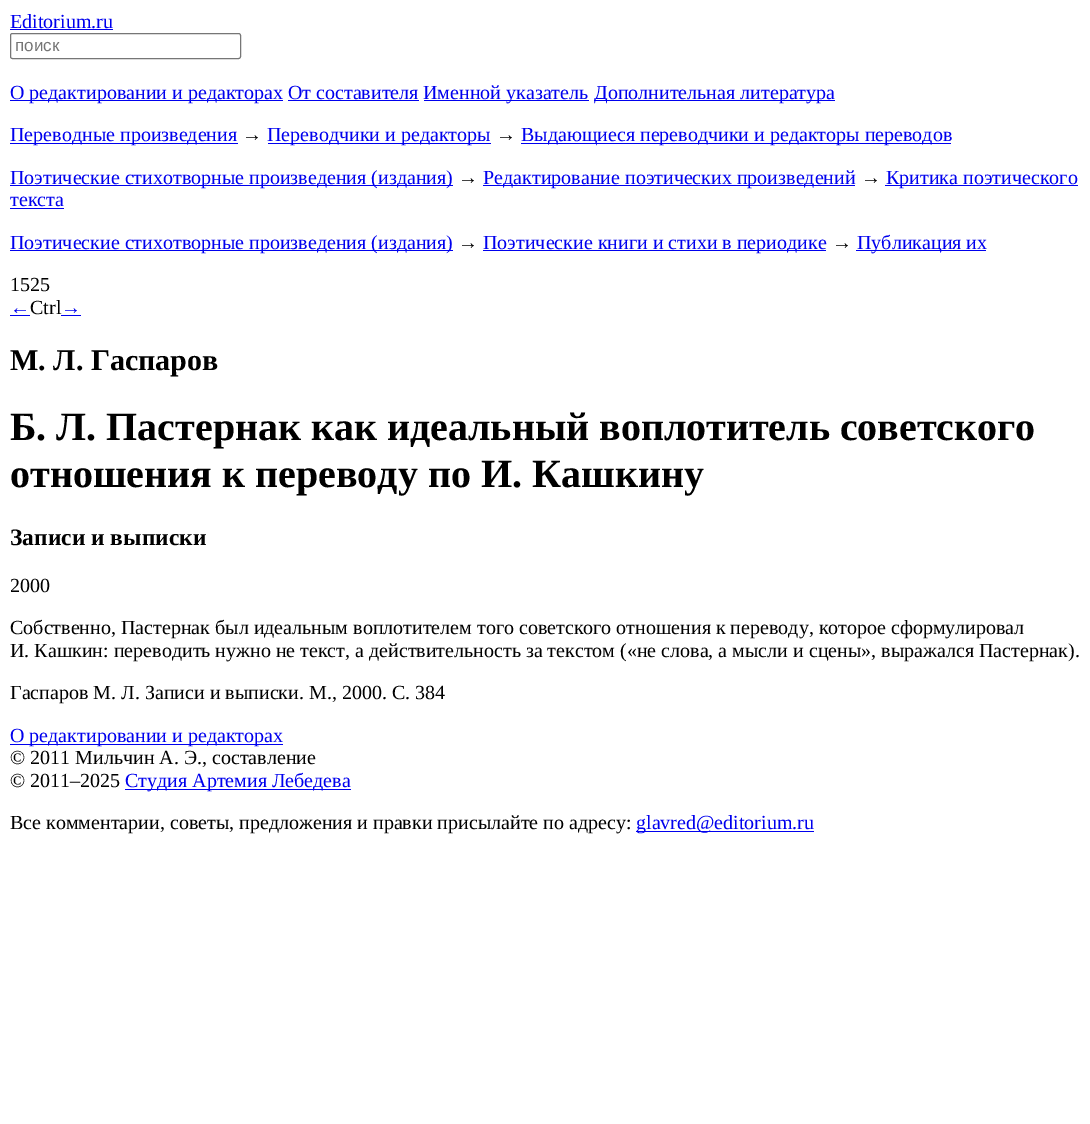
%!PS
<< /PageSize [1090 1124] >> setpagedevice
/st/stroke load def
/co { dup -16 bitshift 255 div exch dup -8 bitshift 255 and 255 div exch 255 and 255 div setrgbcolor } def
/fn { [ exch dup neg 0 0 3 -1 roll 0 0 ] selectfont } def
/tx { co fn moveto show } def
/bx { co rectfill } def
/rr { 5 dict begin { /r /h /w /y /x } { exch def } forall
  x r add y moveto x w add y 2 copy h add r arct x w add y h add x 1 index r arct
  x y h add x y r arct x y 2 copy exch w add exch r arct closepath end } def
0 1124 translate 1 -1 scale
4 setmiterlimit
0 0 1090 1124 16#FFFFFF bx
10 29 103 1 16#0000EE bx
16#767676 co
10.5 33.5 230 25 2 rr st
10 100 273 1 16#0000EE bx
424 100 165 1 16#0000EE bx
594 100 241 1 16#0000EE bx
288 100 131 1 16#0000EE bx
10 143 228 1 16#0000EE bx
268 143 223 1 16#0000EE bx
521 143 430 1 16#0000EE bx
10 185 443 1 16#0000EE bx
483 185 372 1 16#0000EE bx
885 185 193 1 16#0000EE bx
10 208 54 1 16#0000EE bx
10 250 443 1 16#0000EE bx
483 250 343 1 16#0000EE bx
856 250 130 1 16#0000EE bx
10 315 20 1 16#0000EE bx
61 315 20 1 16#0000EE bx
10 744 273 1 16#0000EE bx
125 789 226 1 16#0000EE bx
636 831 178 1 16#0000EE bx
(Editorium.ru) 10 28 /LiberationSerif-Regular 20 16#0000EE tx
(поиск) 15 51 /LiberationSans-Regular 17 16#757575 tx
(О редактировании и редакторах От составителя) 10 99 /LiberationSerif-Regular 20 16#0000EE tx
(Именной указатель) 423 99 /LiberationSerif-Regular 20 16#0000EE tx
(Дополнительная литература) 594 99 /LiberationSerif-Regular 20 16#0000EE tx
(Переводные произведения) 10 141 /LiberationSerif-Regular 20 16#0000EE tx
(→) 242 141 /LiberationSerif-Regular 20 16#000000 tx
(Переводчики и редакторы) 267 141 /LiberationSerif-Regular 20 16#0000EE tx
(→) 496 141 /LiberationSerif-Regular 20 16#000000 tx
(Выдающиеся переводчики и редакторы переводов) 521 141 /LiberationSerif-Regular 20 16#0000EE tx
(Поэтические стихотворные произведения \(издания\)) 10 184 /LiberationSerif-Regular 20 16#0000EE tx
(→) 458 184 /LiberationSerif-Regular 20 16#000000 tx
(Редактирование поэтических произведений) 483 184 /LiberationSerif-Regular 20 16#0000EE tx
(→) 861 184 /LiberationSerif-Regular 20 16#000000 tx
(Критика поэтического) 886 184 /LiberationSerif-Regular 20 16#0000EE tx
(текста) 10 206 /LiberationSerif-Regular 20 16#0000EE tx
(Поэтические стихотворные произведения \(издания\)) 10 249 /LiberationSerif-Regular 20 16#0000EE tx
(→) 458 249 /LiberationSerif-Regular 20 16#000000 tx
(Поэтические книги и стихи в периодике) 483 249 /LiberationSerif-Regular 20 16#0000EE tx
(→) 832 249 /LiberationSerif-Regular 20 16#000000 tx
(Публикация их) 857 249 /LiberationSerif-Regular 20 16#0000EE tx
(1525) 10 291 /LiberationSerif-Regular 20 16#000000 tx
(←) 10 314 /LiberationSerif-Regular 20 16#0000EE tx
(Ctrl) 30 314 /LiberationSerif-Regular 20 16#000000 tx
(→) 61 314 /LiberationSerif-Regular 20 16#0000EE tx
(М. Л. Гаспаров) 10 370 /LiberationSerif-Bold 30 16#000000 tx
(Б. Л. Пастернак как идеальный воплотитель советского) 10 440 /LiberationSerif-Bold 40 16#000000 tx
(отношения к переводу по И. Кашкину) 10 487 /LiberationSerif-Bold 40 16#000000 tx
(Записи и выписки) 10 545 /LiberationSerif-Bold 23.5 16#000000 tx
(2000) 10 592 /LiberationSerif-Regular 20 16#000000 tx
(Собственно, Пастернак был идеальным воплотителем того советского отношения к переводу, которое сформулировал) 10 634 /LiberationSerif-Regular 20 16#000000 tx
(И. Кашкин: переводить нужно не текст, а действительность за текстом \(«не слова, а мысли и сцены», выражался Пастернак\).) 10 657 /LiberationSerif-Regular 20 16#000000 tx
(Гаспаров М. Л. Записи и выписки. М., 2000. С. 384) 10 699 /LiberationSerif-Regular 20 16#000000 tx
(О редактировании и редакторах) 10 742 /LiberationSerif-Regular 20 16#0000EE tx
(© 2011 Мильчин А. Э., составление) 10 764 /LiberationSerif-Regular 20 16#000000 tx
(© 2011–2025) 10 787 /LiberationSerif-Regular 20 16#000000 tx
(Студия Артемия Лебедева) 125 787 /LiberationSerif-Regular 20 16#0000EE tx
(Все комментарии, советы, предложения и правки присылайте по адресу:) 10 829 /LiberationSerif-Regular 20 16#000000 tx
(glavred@editorium.ru) 636 829 /LiberationSerif-Regular 20 16#0000EE tx
showpage
